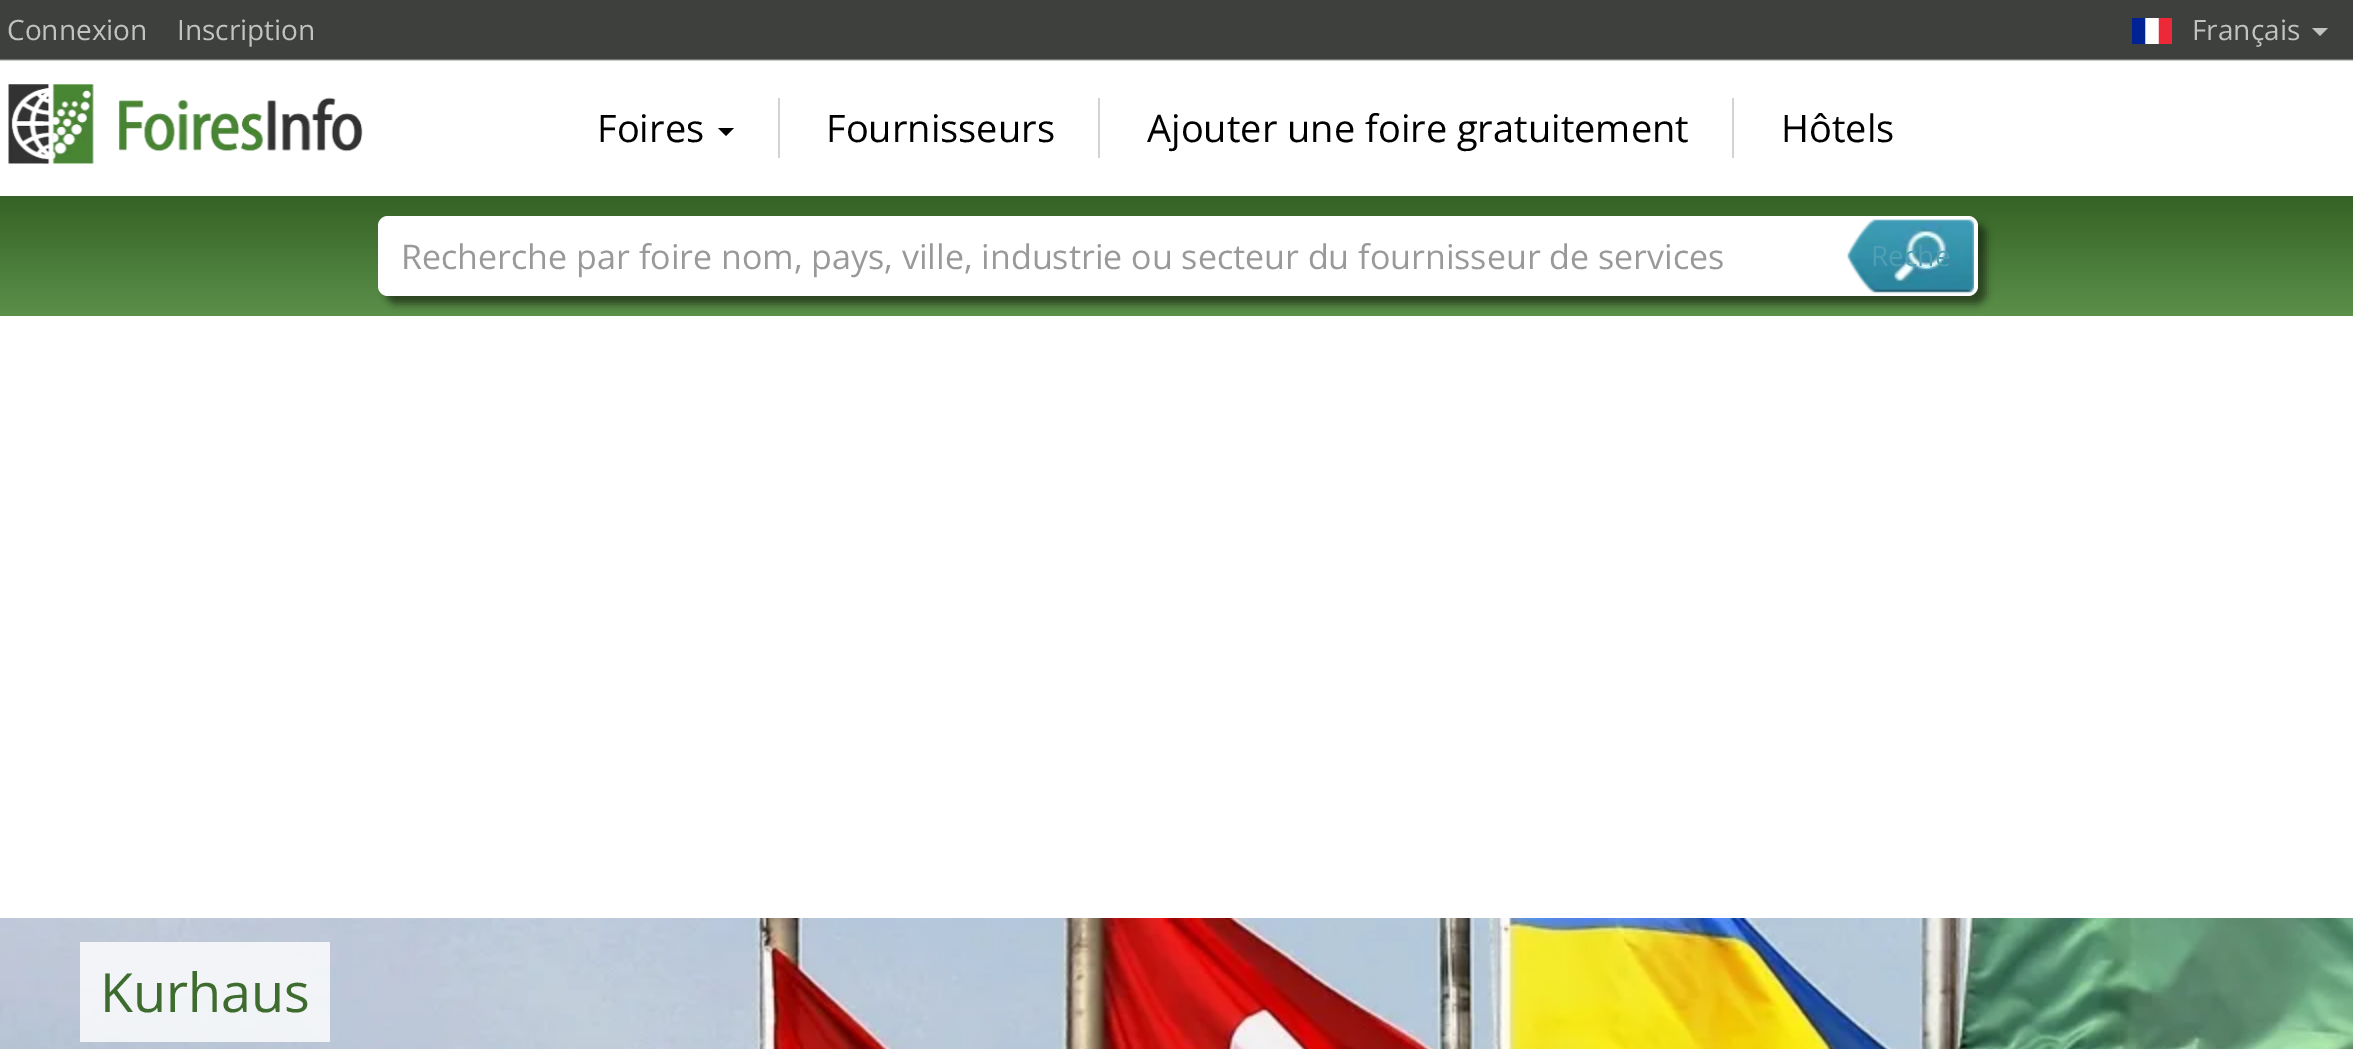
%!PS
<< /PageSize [2353 1049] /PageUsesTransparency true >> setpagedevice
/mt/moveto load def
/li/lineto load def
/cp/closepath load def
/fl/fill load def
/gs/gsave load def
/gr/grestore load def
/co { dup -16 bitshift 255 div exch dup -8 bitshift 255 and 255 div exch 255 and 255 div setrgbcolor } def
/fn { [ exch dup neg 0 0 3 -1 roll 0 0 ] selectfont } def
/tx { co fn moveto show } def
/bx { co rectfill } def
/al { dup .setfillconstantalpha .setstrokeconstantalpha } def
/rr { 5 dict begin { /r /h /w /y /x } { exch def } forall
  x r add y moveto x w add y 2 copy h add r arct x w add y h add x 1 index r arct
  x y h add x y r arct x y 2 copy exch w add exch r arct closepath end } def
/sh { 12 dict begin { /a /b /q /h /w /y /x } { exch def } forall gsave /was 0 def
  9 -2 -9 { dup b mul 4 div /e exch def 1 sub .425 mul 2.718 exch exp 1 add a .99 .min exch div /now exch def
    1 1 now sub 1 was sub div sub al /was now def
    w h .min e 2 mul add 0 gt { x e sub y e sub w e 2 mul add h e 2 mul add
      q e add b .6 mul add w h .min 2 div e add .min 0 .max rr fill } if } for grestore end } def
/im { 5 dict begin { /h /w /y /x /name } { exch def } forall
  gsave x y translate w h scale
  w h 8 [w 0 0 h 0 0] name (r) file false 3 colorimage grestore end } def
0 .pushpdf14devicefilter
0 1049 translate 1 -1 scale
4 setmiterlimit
0 0 2353 1049 16#FFFFFF bx
(media/1.raw) 0 0 2353 62 im
(media/2.raw) 2132 18 40 26 im
16#C1C2C1 co
2312 28 mt 2328 28 li 2320 36 li cp fl
(media/3.raw) 8 84 355 80 im
16#000000 co
718 128 mt 734 128 li 726 136 li cp fl
778 98 2 60 16#D3D3D3 bx
1098 98 2 60 16#D3D3D3 bx
1732 98 2 60 16#D3D3D3 bx
gs 0 196 mt 2353 196 li 2353 316 li 0 316 li cp clip newpath
<< /ShadingType 2 /ColorSpace /DeviceRGB /Coords [1177 196 1177 316] /Extend [true true] /Function << /FunctionType 2 /Domain [0 1] /C0 [.208 .384 .149] /C1 [.357 .565 .286] /N 1 >> >> shfill gr
16#000000 co
386 224 1600 80 10 4 .5 sh
16#FFFFFF co
378 216 1600 80 10 rr fl
(media/4.raw) 1847 219 127 75 im
(media/5.raw) 0 918 2353 131 im
0.8 al
80 942 250 100 16#FFFFFF bx
1 al
(Connexion) 7 40 /OpenSans-Regular 28 16#C1C2C1 tx
(Inscription) 177 40 /OpenSans-Regular 28 16#C1C2C1 tx
(Français) 2192 40 /OpenSans-Regular 28 16#C1C2C1 tx
(Foires) 597 142 /OpenSans-Regular 38 16#000000 tx
(Fournisseurs) 826 142 /OpenSans-Regular 38 16#000000 tx
(Ajouter une foire gratuitement) 1147 142 /OpenSans-Regular 38 16#000000 tx
(Hôtels) 1781 142 /OpenSans-Regular 38 16#000000 tx
(Recherche par foire nom, pays, ville, industrie ou secteur du fournisseur de services) 401 269 /OpenSans-Regular 34 16#999999 tx
(Reche) 1871 266 /OpenSans-Regular 28 16#4F9EB4 tx
(Kurhaus) 100 1012 /OpenSans-Regular 54 16#3E6C2F tx
.poppdf14devicefilter showpage
